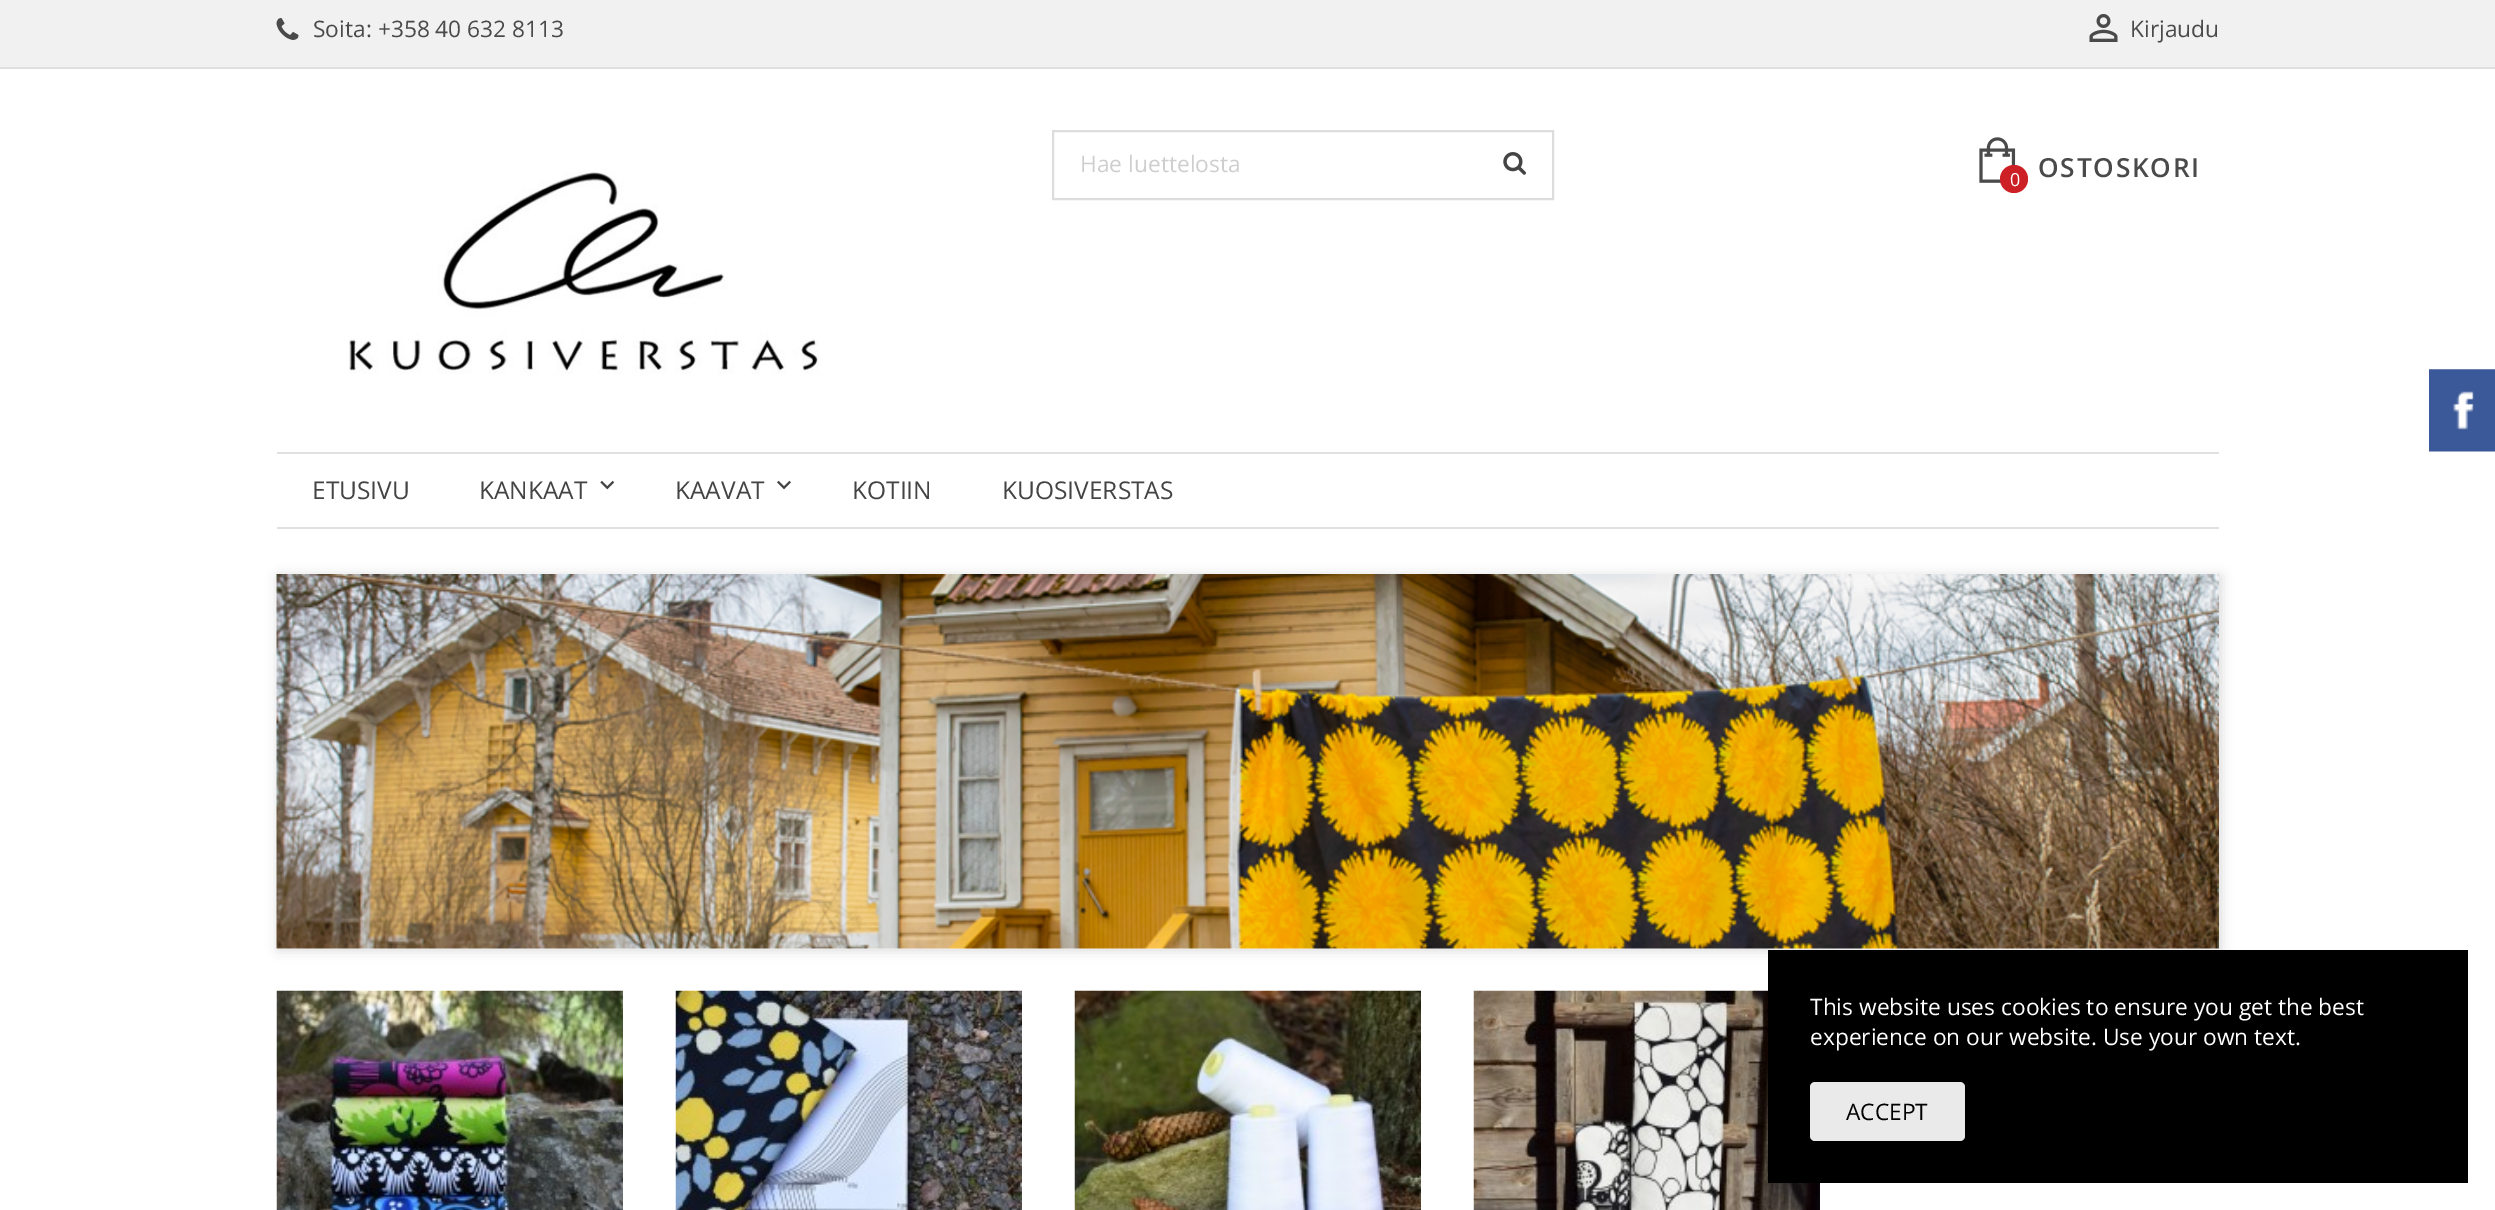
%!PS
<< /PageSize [2495 1210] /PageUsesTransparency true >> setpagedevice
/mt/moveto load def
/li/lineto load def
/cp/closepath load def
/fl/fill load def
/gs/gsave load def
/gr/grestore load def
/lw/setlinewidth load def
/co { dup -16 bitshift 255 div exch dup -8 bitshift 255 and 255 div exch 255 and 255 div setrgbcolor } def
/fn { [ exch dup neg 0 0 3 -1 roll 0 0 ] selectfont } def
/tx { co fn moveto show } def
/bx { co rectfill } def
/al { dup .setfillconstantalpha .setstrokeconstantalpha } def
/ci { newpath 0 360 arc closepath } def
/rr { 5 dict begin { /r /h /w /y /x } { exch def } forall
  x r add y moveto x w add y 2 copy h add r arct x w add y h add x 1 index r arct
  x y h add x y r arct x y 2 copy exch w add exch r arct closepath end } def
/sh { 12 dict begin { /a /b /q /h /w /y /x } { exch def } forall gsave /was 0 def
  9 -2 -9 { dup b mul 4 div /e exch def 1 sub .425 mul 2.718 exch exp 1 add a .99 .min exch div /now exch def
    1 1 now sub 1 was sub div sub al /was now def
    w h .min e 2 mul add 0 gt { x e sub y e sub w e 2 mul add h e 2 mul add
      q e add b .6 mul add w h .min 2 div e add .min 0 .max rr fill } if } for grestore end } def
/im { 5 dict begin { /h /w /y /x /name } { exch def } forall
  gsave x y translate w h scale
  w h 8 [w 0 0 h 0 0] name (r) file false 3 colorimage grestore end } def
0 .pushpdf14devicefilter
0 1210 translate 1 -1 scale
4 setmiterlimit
0 0 2495 1210 16#FFFFFF bx
0 0 2495 67 16#F1F1F1 bx
0 67 2495 2 16#E0E0E0 bx
(media/1.raw) 276 18 23 22 im
(media/2.raw) 2089 14 29 28 im
(media/3.raw) 349 171 470 203 im
16#DDDDDD co
2 lw
1053 131 500 68 rectstroke
(media/4.raw) 1503 152 23 23 im
(media/5.raw) 1979 137 37 46 im
16#CD2026 co
2014 179 14 ci fl
277 452 1942 2 16#E0E0E0 bx
277 527 1942 2 16#E0E0E0 bx
(media/6.raw) 600 480 15 10 im
(media/7.raw) 777 480 14 10 im
(media/8.raw) 2429 369 66 83 im
gs
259 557 mt 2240 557 li 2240 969 li 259 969 li cp 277 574 mt 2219 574 li 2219 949 li 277 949 li cp eoclip newpath
16#000000 co
278 576 1943 374 0 6 .15 sh
gr
(media/9.raw) 276 574 1943 375 im
(media/10.raw) 276 990 347 220 im
(media/11.raw) 675 990 347 220 im
(media/12.raw) 1074 990 347 220 im
(media/13.raw) 1473 990 347 220 im
1768 950 700 233 16#000000 bx
16#EAEAEA co
1810 1082 155 59 5 rr fl
(Soita: +358 40 632 8113) 313 37 /OpenSans-Regular 22.75 16#4A4A4A tx
(Kirjaudu) 2130 37 /OpenSans-Regular 22.75 16#4A4A4A tx
(Hae luettelosta) 1080 172 /OpenSans-Regular 22.75 16#CECECE tx
/OpenSans-SemiBold 26.25 fn
16#4A4A4A co
2038 177 mt 1.75 0 (OSTOSKORI) ashow
(0) 2010 186 /OpenSans-Regular 18 16#FFFFFF tx
(ETUSIVU) 312 499 /OpenSans-Regular 24.5 16#444444 tx
(KANKAAT) 479 499 /OpenSans-Regular 24.5 16#444444 tx
(KAAVAT) 675 499 /OpenSans-Regular 24.5 16#444444 tx
(KOTIIN) 852 499 /OpenSans-Regular 24.5 16#444444 tx
(KUOSIVERSTAS) 1002 499 /OpenSans-Regular 24.5 16#444444 tx
(This website uses cookies to ensure you get the best) 1810 1015 /OpenSans-Regular 22.75 16#FFFFFF tx
(experience on our website. Use your own text.) 1810 1045 /OpenSans-Regular 22.75 16#FFFFFF tx
(ACCEPT) 1846 1120 /OpenSans-Regular 22.75 16#000000 tx
.poppdf14devicefilter showpage
